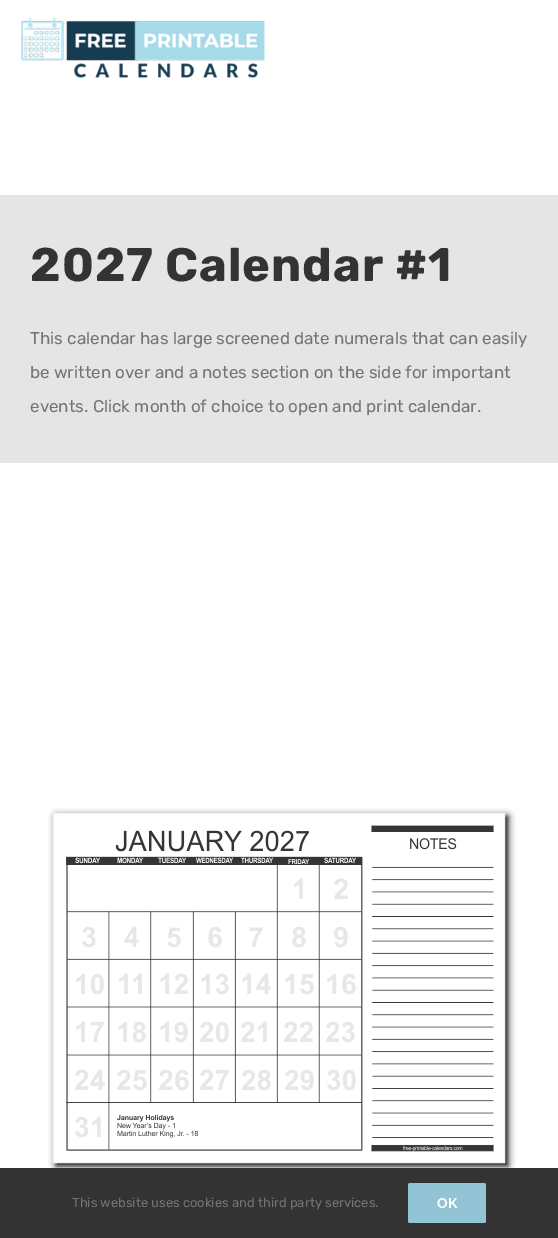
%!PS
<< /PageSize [558 1238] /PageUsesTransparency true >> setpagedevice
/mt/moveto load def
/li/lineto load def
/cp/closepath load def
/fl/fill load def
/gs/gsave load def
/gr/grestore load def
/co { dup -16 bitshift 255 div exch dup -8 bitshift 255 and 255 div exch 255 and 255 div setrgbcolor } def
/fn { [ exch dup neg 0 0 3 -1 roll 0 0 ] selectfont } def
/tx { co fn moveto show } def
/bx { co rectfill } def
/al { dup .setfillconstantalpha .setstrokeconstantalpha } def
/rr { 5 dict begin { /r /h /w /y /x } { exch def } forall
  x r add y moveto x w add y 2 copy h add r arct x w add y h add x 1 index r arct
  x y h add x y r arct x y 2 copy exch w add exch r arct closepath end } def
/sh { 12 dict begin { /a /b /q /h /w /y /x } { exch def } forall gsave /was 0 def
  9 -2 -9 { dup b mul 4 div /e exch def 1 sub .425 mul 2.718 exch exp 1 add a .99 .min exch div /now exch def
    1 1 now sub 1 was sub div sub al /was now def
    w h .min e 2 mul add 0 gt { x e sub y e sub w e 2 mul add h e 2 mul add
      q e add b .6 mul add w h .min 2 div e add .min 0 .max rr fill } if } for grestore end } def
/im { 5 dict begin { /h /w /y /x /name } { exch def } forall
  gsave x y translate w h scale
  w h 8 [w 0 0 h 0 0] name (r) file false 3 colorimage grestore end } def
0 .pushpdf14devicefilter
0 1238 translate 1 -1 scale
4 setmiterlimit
0 0 558 1238 16#FFFFFF bx
(media/1.raw) 21 17 244 61 im
0 195 558 268 16#E5E5E5 bx
gs
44 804 mt 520 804 li 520 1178 li 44 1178 li cp 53 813 mt 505 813 li 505 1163 li 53 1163 li cp eoclip newpath
16#000000 co
56 816 452 350 0 3.5 1 sh
gr
16#F5F5F5 co
53.5 813.5 451 349 rectstroke
(media/2.raw) 66 825 428 327 im
0 1168 558 70 16#333333 bx
16#92C4D5 co
408 1183 78 40 2 rr fl
/Rubik-Bold 47 fn
16#333333 co
30 281 mt 1 0 (2027 Calendar #1) ashow
(This calendar has large screened date numerals that can easily) 30 344 /Rubik-Regular 17 16#747474 tx
(be written over and a notes section on the side for important) 30 378 /Rubik-Regular 17 16#747474 tx
(events. Click month of choice to open and print calendar.) 30 412 /Rubik-Regular 17 16#747474 tx
(This website uses cookies and third party services.) 72 1207 /Rubik-Regular 13 16#747474 tx
(OK) 437 1208 /Raleway-Thin 14 16#FFFFFF tx
.poppdf14devicefilter showpage
